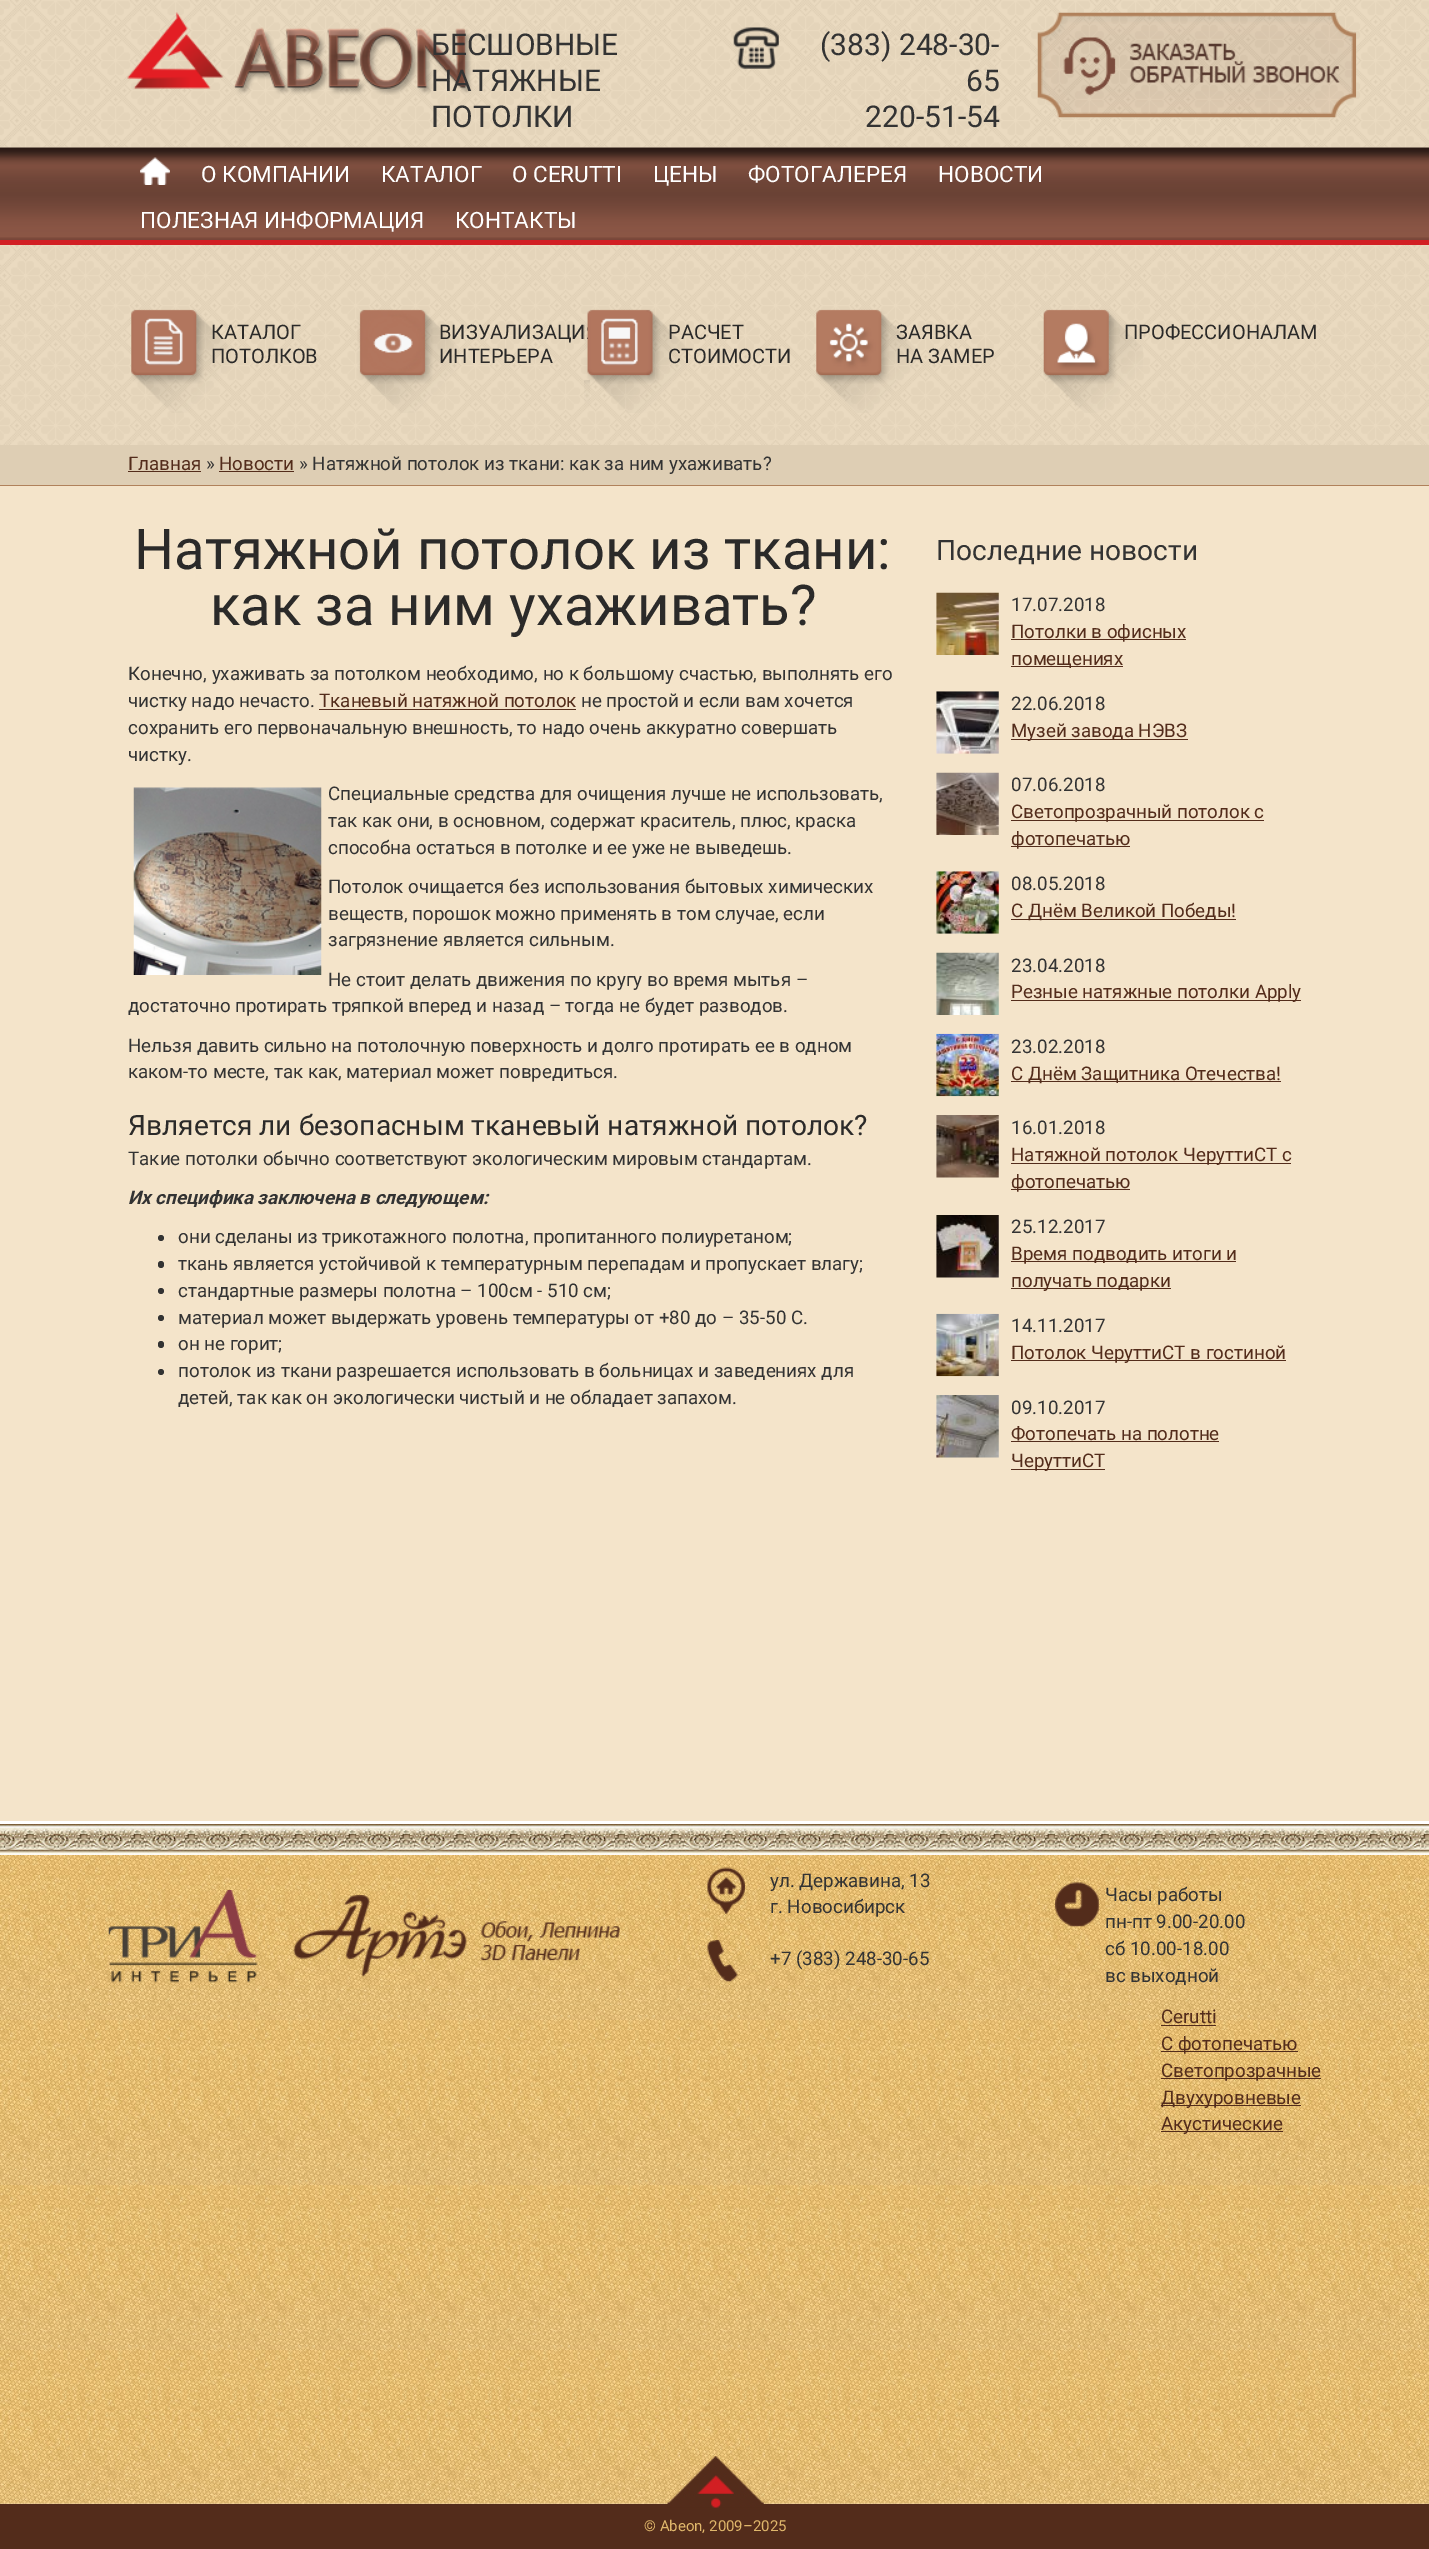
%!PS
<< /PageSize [1429 2549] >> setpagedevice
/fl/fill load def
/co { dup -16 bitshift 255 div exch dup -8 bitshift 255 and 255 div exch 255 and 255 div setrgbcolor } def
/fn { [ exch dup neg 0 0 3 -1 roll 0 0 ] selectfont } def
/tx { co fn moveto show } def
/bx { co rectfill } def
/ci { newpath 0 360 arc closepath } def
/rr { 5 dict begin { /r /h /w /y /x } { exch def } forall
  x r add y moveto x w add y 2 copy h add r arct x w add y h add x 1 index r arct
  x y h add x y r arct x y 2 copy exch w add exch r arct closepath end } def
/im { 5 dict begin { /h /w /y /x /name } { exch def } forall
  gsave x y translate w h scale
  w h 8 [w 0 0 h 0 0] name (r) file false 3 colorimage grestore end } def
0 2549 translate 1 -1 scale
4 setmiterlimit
0 0 1429 2549 16#F4E4CA bx
(media/1.raw) 0 0 1429 148 im
(media/2.raw) 127 12 367 83 im
(media/3.raw) 733 27 46 42 im
(media/4.raw) 1037 12 320 106 im
(media/5.raw) 0 147 1429 93 im
(media/6.raw) 140 157 30 28 im
(media/7.raw) 0 245 1429 200 im
0 240 1429 5 16#D21F23 bx
(media/8.raw) 131 309 100 104 im
(media/9.raw) 357 309 102 104 im
(media/11.raw) 816 309 100 104 im
(media/12.raw) 1043 309 100 104 im
0 445 1429 40 16#DECEB4 bx
0 485 1429 1 16#B0815B bx
128 471 73 1 16#532C1B bx
219 471 75 1 16#532C1B bx
319 709 257 1 16#532C1B bx
(media/13.raw) 133 787 189 188 im
16#333333 co
161 1238 3 ci fl
158 1261 6 7 3 rr fl
161 1291 3 ci fl
161 1318 3 ci fl
158 1341 6 7 3 rr fl
161 1372 3 ci fl
(media/14.raw) 936 592 63 63 im
1011 639 175 1 16#532C1B bx
1011 666 112 1 16#532C1B bx
(media/15.raw) 936 691 63 63 im
1011 739 177 1 16#532C1B bx
(media/16.raw) 936 772 63 63 im
1011 820 253 1 16#532C1B bx
1011 846 119 1 16#532C1B bx
(media/17.raw) 936 871 63 63 im
1011 919 225 1 16#532C1B bx
(media/18.raw) 936 952 63 63 im
1011 1000 290 1 16#532C1B bx
(media/19.raw) 936 1033 63 64 im
1011 1081 270 1 16#532C1B bx
(media/20.raw) 936 1115 63 63 im
1011 1163 280 1 16#532C1B bx
1011 1189 119 1 16#532C1B bx
(media/21.raw) 936 1215 63 63 im
1011 1261 225 1 16#532C1B bx
1011 1288 160 1 16#532C1B bx
(media/22.raw) 936 1313 63 64 im
1011 1360 275 1 16#532C1B bx
(media/23.raw) 936 1395 63 63 im
1011 1441 208 1 16#532C1B bx
1011 1469 94 1 16#532C1B bx
(media/24.raw) 0 1824 1429 31 im
0 1821 1429 3 16#FFFFFF bx
(media/25.raw) 0 1855 1429 649 im
(media/26.raw) 108 1890 150 93 im
(media/27.raw) 293 1895 327 82 im
(media/28.raw) 707 1867 38 47 im
(media/29.raw) 707 1940 31 42 im
(media/30.raw) 1055 1882 44 45 im
1161 2025 55 1 16#532C1B bx
1161 2051 137 1 16#532C1B bx
1161 2078 160 1 16#532C1B bx
1161 2105 140 1 16#532C1B bx
1161 2131 122 1 16#532C1B bx
0 2504 1429 45 16#532C1B bx
(media/31.raw) 667 2456 97 52 im
(БЕСШОВНЫЕ) 431 55 /Roboto-Regular 30 16#333333 tx
(НАТЯЖНЫЕ) 431 91 /Roboto-Regular 30 16#333333 tx
(ПОТОЛКИ) 431 127 /Roboto-Regular 30 16#333333 tx
(\(383\) 248-30-) 820 55 /Roboto-Regular 30 16#333333 tx
(65) 966 91 /Roboto-Regular 30 16#333333 tx
(220-51-54) 865 127 /Roboto-Regular 30 16#333333 tx
(О КОМПАНИИ) 201 182 /Roboto-Regular 22.5 16#FFFFFF tx
(КАТАЛОГ) 381 182 /Roboto-Regular 22.5 16#FFFFFF tx
(О CERUTTI) 512 182 /Roboto-Regular 22.5 16#FFFFFF tx
(ЦЕНЫ) 653 182 /Roboto-Regular 22.5 16#FFFFFF tx
(ФОТОГАЛЕРЕЯ) 748 182 /Roboto-Regular 22.5 16#FFFFFF tx
(НОВОСТИ) 938 182 /Roboto-Regular 22.5 16#FFFFFF tx
(ПОЛЕЗНАЯ ИНФОРМАЦИЯ) 140 228 /Roboto-Regular 22.5 16#FFFFFF tx
(КОНТАКТЫ) 455 228 /Roboto-Regular 22.5 16#FFFFFF tx
(КАТАЛОГ) 211 339 /Roboto-Regular 20 16#2B2A29 tx
(ПОТОЛКОВ) 211 363 /Roboto-Regular 20 16#2B2A29 tx
(ВИЗУАЛИЗАЦИ) 439 339 /Roboto-Regular 20 16#2B2A29 tx
(ИНТЕРЬЕРА) 439 363 /Roboto-Regular 20 16#2B2A29 tx
(media/10.raw) 584 309 103 104 im
(РАСЧЕТ) 668 339 /Roboto-Regular 20 16#2B2A29 tx
(СТОИМОСТИ) 668 363 /Roboto-Regular 20 16#2B2A29 tx
(ЗАЯВКА) 896 339 /Roboto-Regular 20 16#2B2A29 tx
(НА ЗАМЕР) 896 363 /Roboto-Regular 20 16#2B2A29 tx
(ПРОФЕССИОНАЛАМ) 1124 339 /Roboto-Regular 20 16#2B2A29 tx
(Главная) 128 470 /Roboto-Regular 18.75 16#532C1B tx
(») 206 470 /Roboto-Regular 18.75 16#333333 tx
(Новости) 219 470 /Roboto-Regular 18.75 16#532C1B tx
(» Натяжной потолок из ткани: как за ним ухаживать?) 299 470 /Roboto-Regular 18.75 16#333333 tx
(Натяжной потолок из ткани:) 134 569 /Roboto-Regular 56.25 16#2B2A29 tx
(как за ним ухаживать?) 210 625 /Roboto-Regular 56.25 16#2B2A29 tx
(Конечно, ухаживать за потолком необходимо, но к большому счастью, выполнять его) 128 680 /Roboto-Regular 18.75 16#333333 tx
(чистку надо нечасто.) 128 707 /Roboto-Regular 18.75 16#333333 tx
(Тканевый натяжной потолок) 319 707 /Roboto-Regular 18.75 16#532C1B tx
(не простой и если вам хочется) 581 707 /Roboto-Regular 18.75 16#333333 tx
(сохранить его первоначальную внешность, то надо очень аккуратно совершать) 128 734 /Roboto-Regular 18.75 16#333333 tx
(чистку.) 128 761 /Roboto-Regular 18.75 16#333333 tx
(Специальные средства для очищения лучше не использовать,) 328 800 /Roboto-Regular 18.75 16#333333 tx
(так как они, в основном, содержат краситель, плюс, краска) 328 827 /Roboto-Regular 18.75 16#333333 tx
(способна остаться в потолке и ее уже не выведешь.) 328 854 /Roboto-Regular 18.75 16#333333 tx
(Потолок очищается без использования бытовых химических) 328 893 /Roboto-Regular 18.75 16#333333 tx
(веществ, порошок можно применять в том случае, если) 328 920 /Roboto-Regular 18.75 16#333333 tx
(загрязнение является сильным.) 328 946 /Roboto-Regular 18.75 16#333333 tx
(Не стоит делать движения по кругу во время мытья –) 328 986 /Roboto-Regular 18.75 16#333333 tx
(достаточно протирать тряпкой вперед и назад – тогда не будет разводов.) 128 1012 /Roboto-Regular 18.75 16#333333 tx
(Нельзя давить сильно на потолочную поверхность и долго протирать ее в одном) 128 1052 /Roboto-Regular 18.75 16#333333 tx
(каком-то месте, так как, материал может повредиться.) 128 1078 /Roboto-Regular 18.75 16#333333 tx
(Является ли безопасным тканевый натяжной потолок?) 128 1135 /Roboto-Regular 28.1 16#2B2A29 tx
(Такие потолки обычно соответствуют экологическим мировым стандартам.) 128 1165 /Roboto-Regular 18.75 16#333333 tx
(Их специфика заключена в следующем:) 128 1204 /Roboto-BoldItalic 18.75 16#333333 tx
(они сделаны из трикотажного полотна, пропитанного полиуретаном;) 178 1243 /Roboto-Regular 18.75 16#333333 tx
(ткань является устойчивой к температурным перепадам и пропускает влагу;) 178 1270 /Roboto-Regular 18.75 16#333333 tx
(стандартные размеры полотна – 100см - 510 см;) 178 1297 /Roboto-Regular 18.75 16#333333 tx
(материал может выдержать уровень температуры от +80 до – 35-50 С.) 178 1324 /Roboto-Regular 18.75 16#333333 tx
(он не горит;) 178 1350 /Roboto-Regular 18.75 16#333333 tx
(потолок из ткани разрешается использовать в больницах и заведениях для) 178 1377 /Roboto-Regular 18.75 16#333333 tx
(детей, так как он экологически чистый и не обладает запахом.) 178 1404 /Roboto-Regular 18.75 16#333333 tx
(Последние новости) 936 560 /Roboto-Regular 28.1 16#333333 tx
(17.07.2018) 1011 611 /Roboto-Regular 18.75 16#333333 tx
(Потолки в офисных) 1011 638 /Roboto-Regular 18.75 16#532C1B tx
(помещениях) 1011 665 /Roboto-Regular 18.75 16#532C1B tx
(22.06.2018) 1011 710 /Roboto-Regular 18.75 16#333333 tx
(Музей завода НЭВЗ) 1011 737 /Roboto-Regular 18.75 16#532C1B tx
(07.06.2018) 1011 791 /Roboto-Regular 18.75 16#333333 tx
(Светопрозрачный потолок с) 1011 818 /Roboto-Regular 18.75 16#532C1B tx
(фотопечатью) 1011 845 /Roboto-Regular 18.75 16#532C1B tx
(08.05.2018) 1011 890 /Roboto-Regular 18.75 16#333333 tx
(С Днём Великой Победы!) 1011 917 /Roboto-Regular 18.75 16#532C1B tx
(23.04.2018) 1011 972 /Roboto-Regular 18.75 16#333333 tx
(Резные натяжные потолки Apply) 1011 998 /Roboto-Regular 18.75 16#532C1B tx
(23.02.2018) 1011 1053 /Roboto-Regular 18.75 16#333333 tx
(С Днём Защитника Отечества!) 1011 1080 /Roboto-Regular 18.75 16#532C1B tx
(16.01.2018) 1011 1134 /Roboto-Regular 18.75 16#333333 tx
(Натяжной потолок ЧеруттиСТ с) 1011 1161 /Roboto-Regular 18.75 16#532C1B tx
(фотопечатью) 1011 1188 /Roboto-Regular 18.75 16#532C1B tx
(25.12.2017) 1011 1233 /Roboto-Regular 18.75 16#333333 tx
(Время подводить итоги и) 1011 1260 /Roboto-Regular 18.75 16#532C1B tx
(получать подарки) 1011 1287 /Roboto-Regular 18.75 16#532C1B tx
(14.11.2017) 1011 1332 /Roboto-Regular 18.75 16#333333 tx
(Потолок ЧеруттиСТ в гостиной) 1011 1359 /Roboto-Regular 18.75 16#532C1B tx
(09.10.2017) 1011 1414 /Roboto-Regular 18.75 16#333333 tx
(Фотопечать на полотне) 1011 1440 /Roboto-Regular 18.75 16#532C1B tx
(ЧеруттиСТ) 1011 1467 /Roboto-Regular 18.75 16#532C1B tx
(ул. Державина, 13) 770 1887 /Roboto-Regular 18.75 16#333333 tx
(г. Новосибирск) 770 1913 /Roboto-Regular 18.75 16#333333 tx
(+7 \(383\) 248-30-65) 770 1965 /Roboto-Regular 18.75 16#333333 tx
(Часы работы) 1105 1901 /Roboto-Regular 18.75 16#333333 tx
(пн-пт 9.00-20.00) 1105 1928 /Roboto-Regular 18.75 16#333333 tx
(сб 10.00-18.00) 1105 1955 /Roboto-Regular 18.75 16#333333 tx
(вс выходной) 1105 1982 /Roboto-Regular 18.75 16#333333 tx
(Cerutti) 1161 2023 /Roboto-Regular 18.75 16#532C1B tx
(С фотопечатью) 1161 2050 /Roboto-Regular 18.75 16#532C1B tx
(Светопрозрачные) 1161 2077 /Roboto-Regular 18.75 16#532C1B tx
(Двухуровневые) 1161 2104 /Roboto-Regular 18.75 16#532C1B tx
(Акустические) 1161 2130 /Roboto-Regular 18.75 16#532C1B tx
(© Abeon, 2009–2025) 644 2531 /Roboto-Regular 15 16#E0B76B tx
showpage
